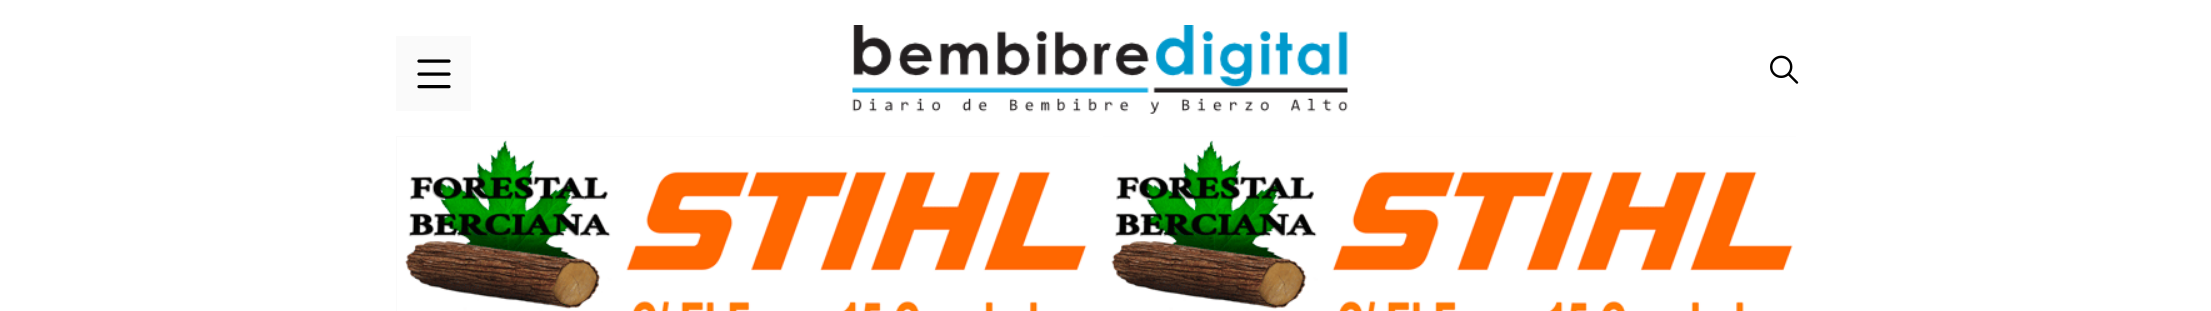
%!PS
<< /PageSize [2211 311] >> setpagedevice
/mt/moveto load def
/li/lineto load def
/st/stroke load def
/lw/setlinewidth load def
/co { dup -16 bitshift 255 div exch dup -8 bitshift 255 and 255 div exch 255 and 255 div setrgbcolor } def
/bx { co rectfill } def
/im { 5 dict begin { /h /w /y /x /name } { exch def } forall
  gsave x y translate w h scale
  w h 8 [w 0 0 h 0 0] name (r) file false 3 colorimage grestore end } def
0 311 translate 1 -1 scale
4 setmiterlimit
0 0 2211 311 16#FFFFFF bx
396 36 75 75 16#FAFAFA bx
16#000000 co
3 lw
1 setlinecap
419 61 mt 449 61 li 419 74 mt 449 74 li 419 86.5 mt 449 86.5 li st
(media/1.raw) 852 25 496 89 im
(media/2.raw) 1770 55 29 29 im
396 136 694 175 16#FAFAFA bx
(media/3.raw) 397 137 693 174 im
(media/4.raw) 1103 136 693 175 im
showpage
